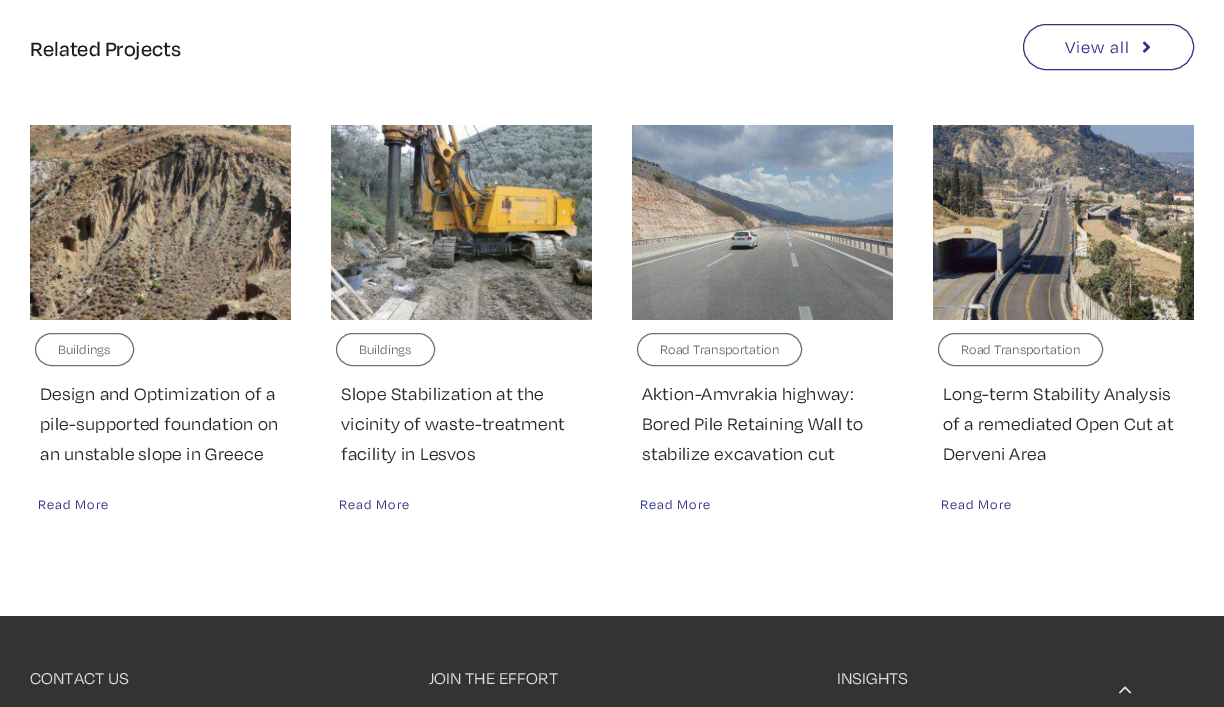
%!PS
<< /PageSize [1224 707] >> setpagedevice
/mt/moveto load def
/st/stroke load def
/co { dup -16 bitshift 255 div exch dup -8 bitshift 255 and 255 div exch 255 and 255 div setrgbcolor } def
/fn { [ exch dup neg 0 0 3 -1 roll 0 0 ] selectfont } def
/tx { co fn moveto show } def
/bx { co rectfill } def
/rr { 5 dict begin { /r /h /w /y /x } { exch def } forall
  x r add y moveto x w add y 2 copy h add r arct x w add y h add x 1 index r arct
  x y h add x y r arct x y 2 copy exch w add exch r arct closepath end } def
/im { 5 dict begin { /h /w /y /x /name } { exch def } forall
  gsave x y translate w h scale
  w h 8 [w 0 0 h 0 0] name (r) file false 3 colorimage grestore end } def
0 707 translate 1 -1 scale
4 setmiterlimit
0 0 1224 707 16#FFFFFF bx
16#2F3286 co
1023.5 24.5 170 45 22.5 rr st
(media/1.raw) 1142 41 9 12 im
(media/2.raw) 30 125 261 195 im
16#707070 co
35.5 333.5 98 32 16 rr st
(media/3.raw) 331 125 261 195 im
336.5 333.5 98 32 16 rr st
(media/4.raw) 632 125 261 195 im
637.5 333.5 164 32 16 rr st
(media/5.raw) 933 125 261 195 im
938.5 333.5 164 32 16 rr st
0 616 1224 91 16#333333 bx
(media/6.raw) 1119 686 13 8 im
(Related Projects) 30 56 /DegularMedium-Medium 22 16#1C1C1C tx
/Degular-Regular 18 fn
16#2F3286 co
1065 53 mt 1 0 (View all) ashow
(Buildings) 58 354 /Degular-Regular 14 16#707070 tx
/Degular-Regular 19 fn
16#292929 co
40 400 mt .25 0 (Design and Optimization of a) ashow
40 430 mt .25 0 (pile-supported foundation on) ashow
40 460 mt .25 0 (an unstable slope in Greece) ashow
/Degular-Regular 14 fn
16#2F3286 co
38 509 mt 1 0 (Read More) ashow
(Buildings) 359 354 /Degular-Regular 14 16#707070 tx
/Degular-Regular 19 fn
16#292929 co
341 400 mt .25 0 (Slope Stabilization at the) ashow
341 430 mt .25 0 (vicinity of waste-treatment) ashow
341 460 mt .25 0 (facility in Lesvos) ashow
/Degular-Regular 14 fn
16#2F3286 co
339 509 mt 1 0 (Read More) ashow
(Road Transportation) 660 354 /Degular-Regular 14 16#707070 tx
/Degular-Regular 19 fn
16#292929 co
642 400 mt .25 0 (Aktion-Amvrakia highway:) ashow
642 430 mt .25 0 (Bored Pile Retaining Wall to) ashow
642 460 mt .25 0 (stabilize excavation cut) ashow
/Degular-Regular 14 fn
16#2F3286 co
640 509 mt 1 0 (Read More) ashow
(Road Transportation) 961 354 /Degular-Regular 14 16#707070 tx
/Degular-Regular 19 fn
16#292929 co
943 400 mt .25 0 (Long-term Stability Analysis) ashow
943 430 mt .25 0 (of a remediated Open Cut at) ashow
943 460 mt .25 0 (Derveni Area) ashow
/Degular-Regular 14 fn
16#2F3286 co
941 509 mt 1 0 (Read More) ashow
(CONTACT US) 30 684 /Degular-Regular 18 16#DCDCDC tx
(JOIN THE EFFORT) 429 684 /Degular-Regular 18 16#DCDCDC tx
(INSIGHTS) 837 684 /Degular-Regular 18 16#DCDCDC tx
showpage
